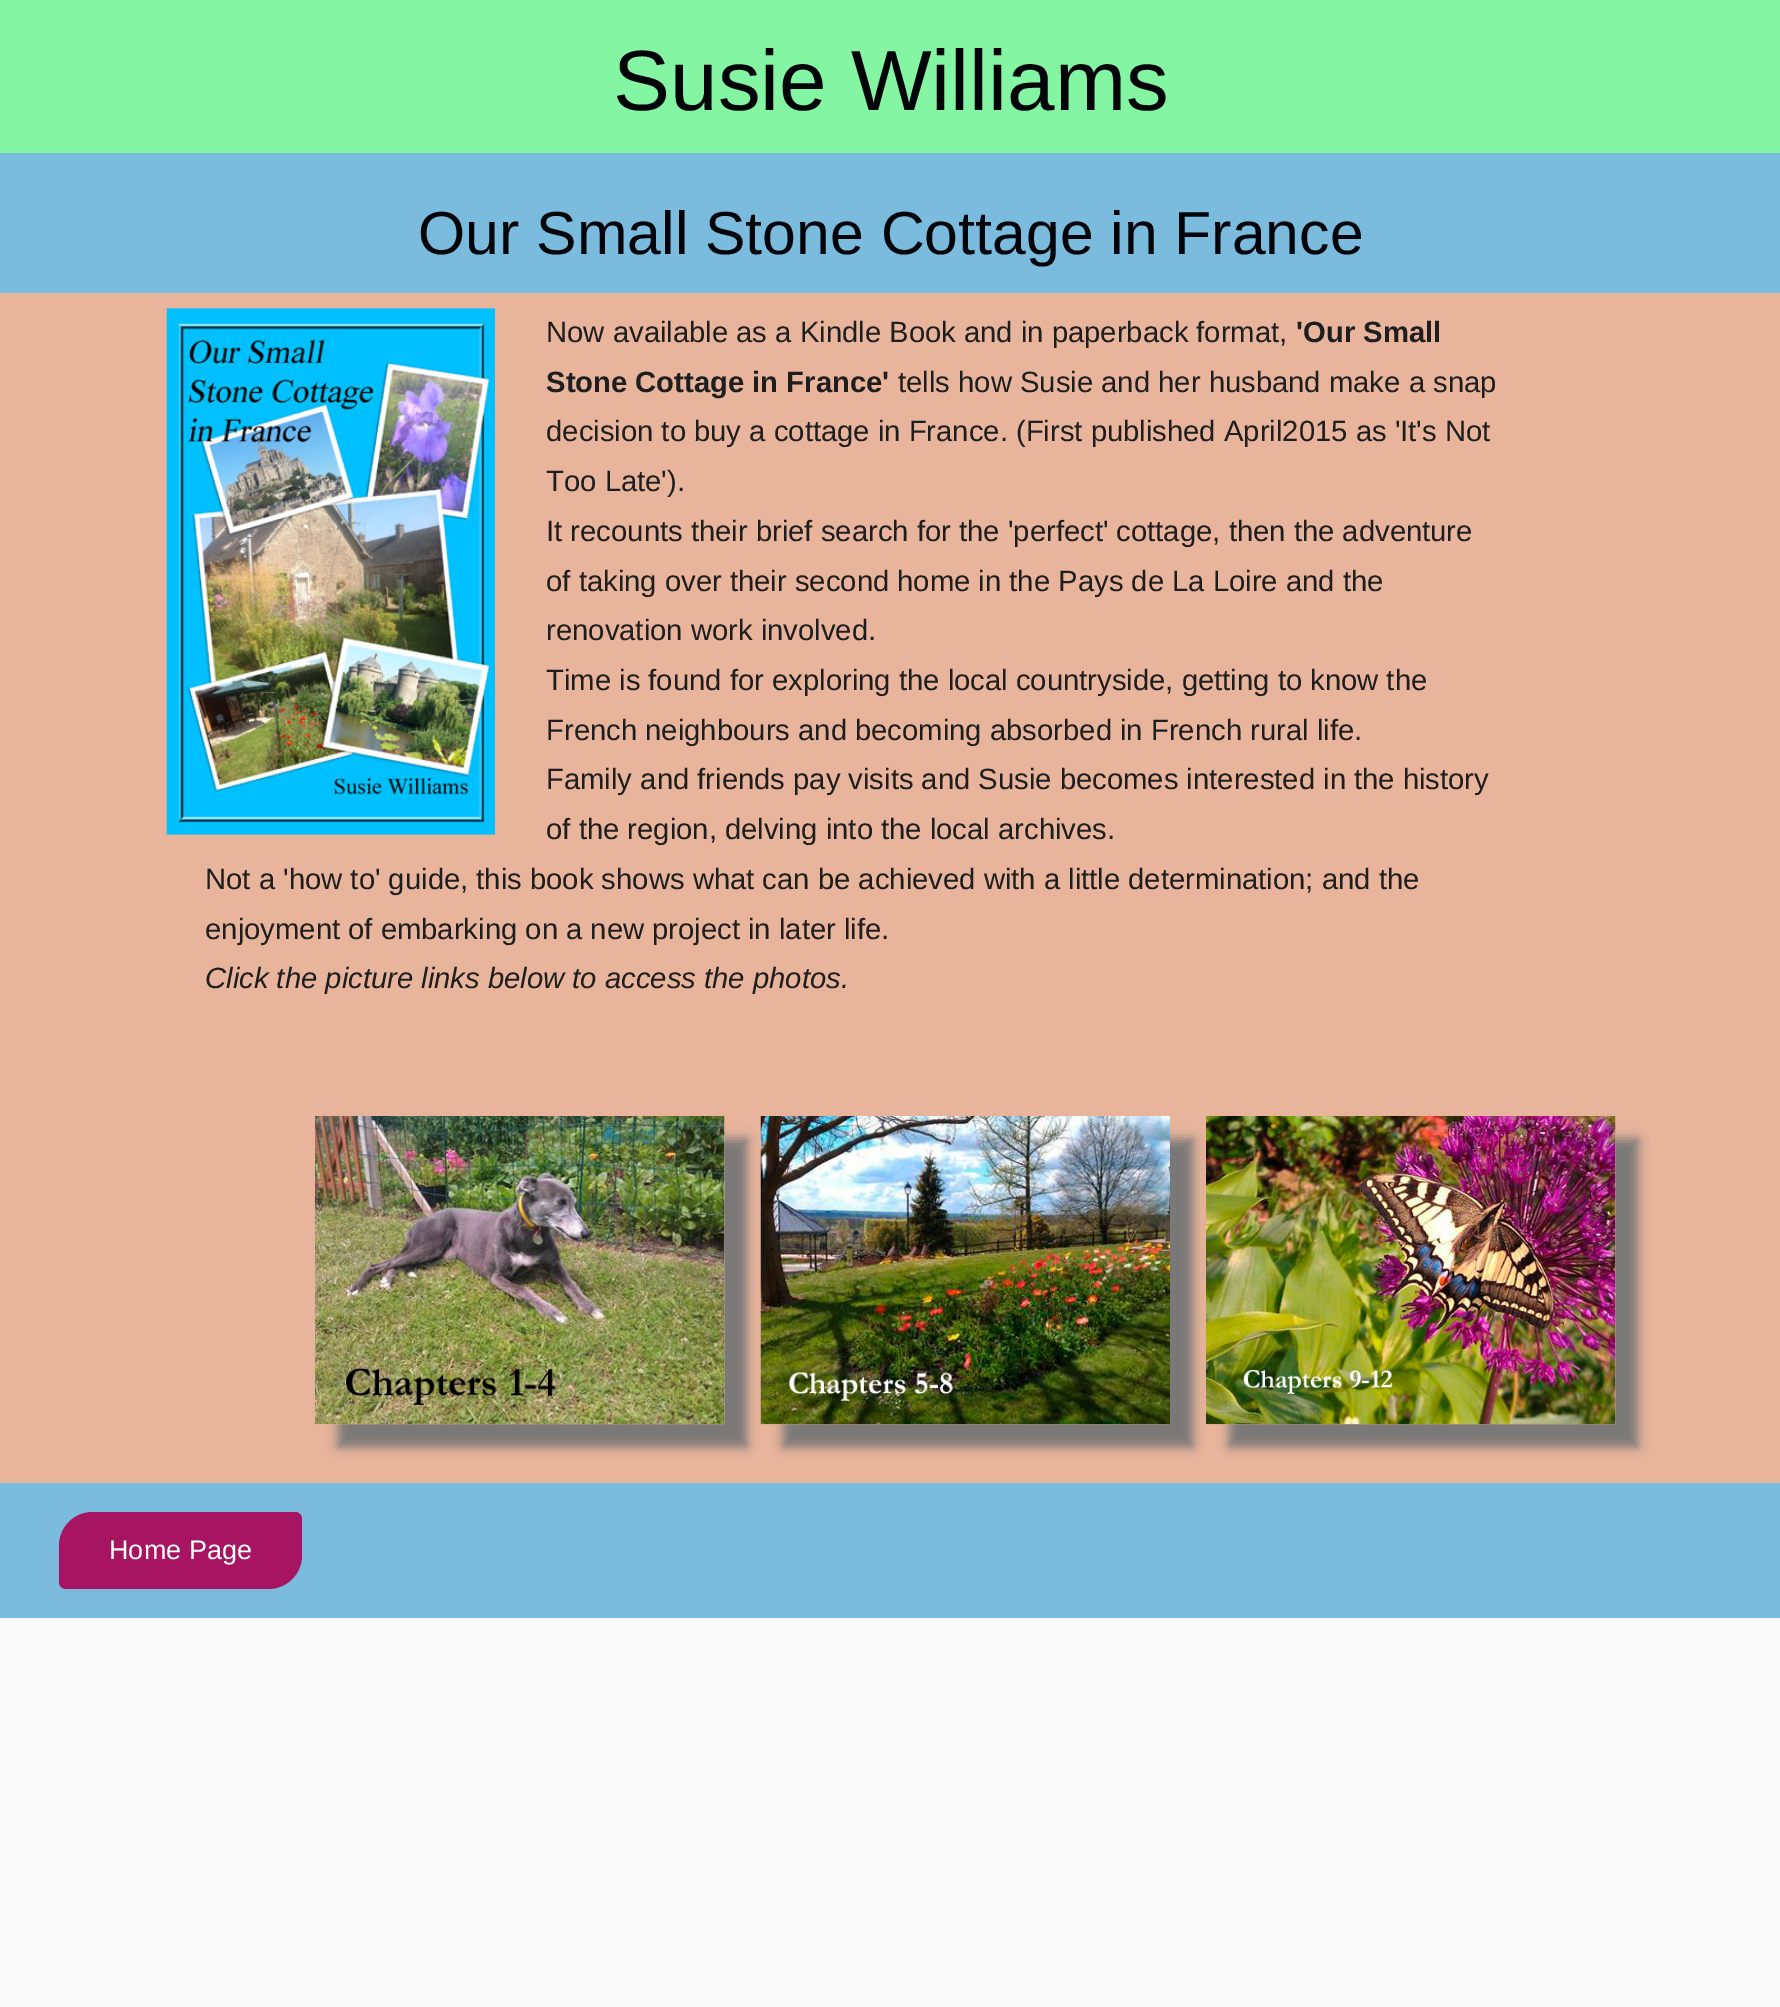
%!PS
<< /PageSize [1780 2007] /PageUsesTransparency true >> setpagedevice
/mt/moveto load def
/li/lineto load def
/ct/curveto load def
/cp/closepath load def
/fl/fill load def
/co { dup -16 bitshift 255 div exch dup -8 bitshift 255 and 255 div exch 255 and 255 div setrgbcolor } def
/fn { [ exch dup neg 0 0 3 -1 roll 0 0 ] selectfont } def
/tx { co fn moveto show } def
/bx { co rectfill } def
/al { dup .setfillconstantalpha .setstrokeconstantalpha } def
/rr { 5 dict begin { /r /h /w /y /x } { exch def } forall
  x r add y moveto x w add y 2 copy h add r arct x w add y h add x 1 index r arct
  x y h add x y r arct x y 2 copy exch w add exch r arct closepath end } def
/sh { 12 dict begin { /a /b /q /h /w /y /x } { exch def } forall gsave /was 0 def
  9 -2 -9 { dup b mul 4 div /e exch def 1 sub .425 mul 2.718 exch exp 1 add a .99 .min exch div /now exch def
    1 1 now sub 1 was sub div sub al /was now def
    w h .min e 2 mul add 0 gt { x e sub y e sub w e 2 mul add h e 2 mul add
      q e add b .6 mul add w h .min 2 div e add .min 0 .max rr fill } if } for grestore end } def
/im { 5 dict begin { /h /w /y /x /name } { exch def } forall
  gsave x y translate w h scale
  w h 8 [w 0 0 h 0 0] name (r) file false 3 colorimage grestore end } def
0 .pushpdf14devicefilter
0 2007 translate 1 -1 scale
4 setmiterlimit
0 0 1780 2007 16#FAFAFA bx
0 0 1780 153 16#84F5A2 bx
0 293 1780 1190 16#E8B49B bx
0 153 1780 140 16#7ABBDE bx
(media/1.raw) 166 308 329 527 im
16#777777 co
338 1139 409 308 0 5.5 1 sh
(media/2.raw) 315 1116 410 309 im
783 1139 410 308 0 5.5 1 sh
(media/3.raw) 760 1116 410 309 im
1229 1139 409 308 0 5.5 1 sh
(media/4.raw) 1206 1116 410 309 im
0 1483 1780 135 16#7ABBDE bx
16#A61462 co
93 1512 mt 295 1512 li 299 1512 302 1515 302 1519 ct 302 1555 li 302 1574 287 1589 268 1589 ct 66 1589 li 62 1589 59 1586 59 1582 ct 59 1546 li 59 1527 74 1512 93 1512 ct cp fl
(Susie Williams) 613 110 /LiberationSans-Regular 85.5 16#01050A tx
(Our Small Stone Cottage in France) 418 254 /LiberationSans-Regular 60.75 16#01050A tx
(Now available as a Kindle Book and in paperback format,) 546 342 /LiberationSans-Regular 29.25 16#1E1E1E tx
('Our Small) 1296 342 /LiberationSans-Bold 29.25 16#1E1E1E tx
(Stone Cottage in France') 546 392 /LiberationSans-Bold 29.25 16#1E1E1E tx
(tells how Susie and her husband make a snap) 898 392 /LiberationSans-Regular 29.25 16#1E1E1E tx
(decision to buy a cottage in France. \(First published April2015 as 'It's Not) 546 441 /LiberationSans-Regular 29.25 16#1E1E1E tx
(Too Late'\).) 546 491 /LiberationSans-Regular 29.25 16#1E1E1E tx
(It recounts their brief search for the 'perfect' cottage, then the adventure) 546 541 /LiberationSans-Regular 29.25 16#1E1E1E tx
(of taking over their second home in the Pays de La Loire and the) 546 591 /LiberationSans-Regular 29.25 16#1E1E1E tx
(renovation work involved.) 546 640 /LiberationSans-Regular 29.25 16#1E1E1E tx
(Time is found for exploring the local countryside, getting to know the) 546 690 /LiberationSans-Regular 29.25 16#1E1E1E tx
(French neighbours and becoming absorbed in French rural life.) 546 740 /LiberationSans-Regular 29.25 16#1E1E1E tx
(Family and friends pay visits and Susie becomes interested in the history) 546 789 /LiberationSans-Regular 29.25 16#1E1E1E tx
(of the region, delving into the local archives.) 546 839 /LiberationSans-Regular 29.25 16#1E1E1E tx
(Not a 'how to' guide, this book shows what can be achieved with a little determination; and the) 205 889 /LiberationSans-Regular 29.25 16#1E1E1E tx
(enjoyment of embarking on a new project in later life.) 205 939 /LiberationSans-Regular 29.25 16#1E1E1E tx
(Click the picture links below to access the photos.) 205 988 /LiberationSans-Italic 29.25 16#1E1E1E tx
(Home Page) 109 1559 /LiberationSans-Regular 27 16#FFFFFF tx
.poppdf14devicefilter showpage
